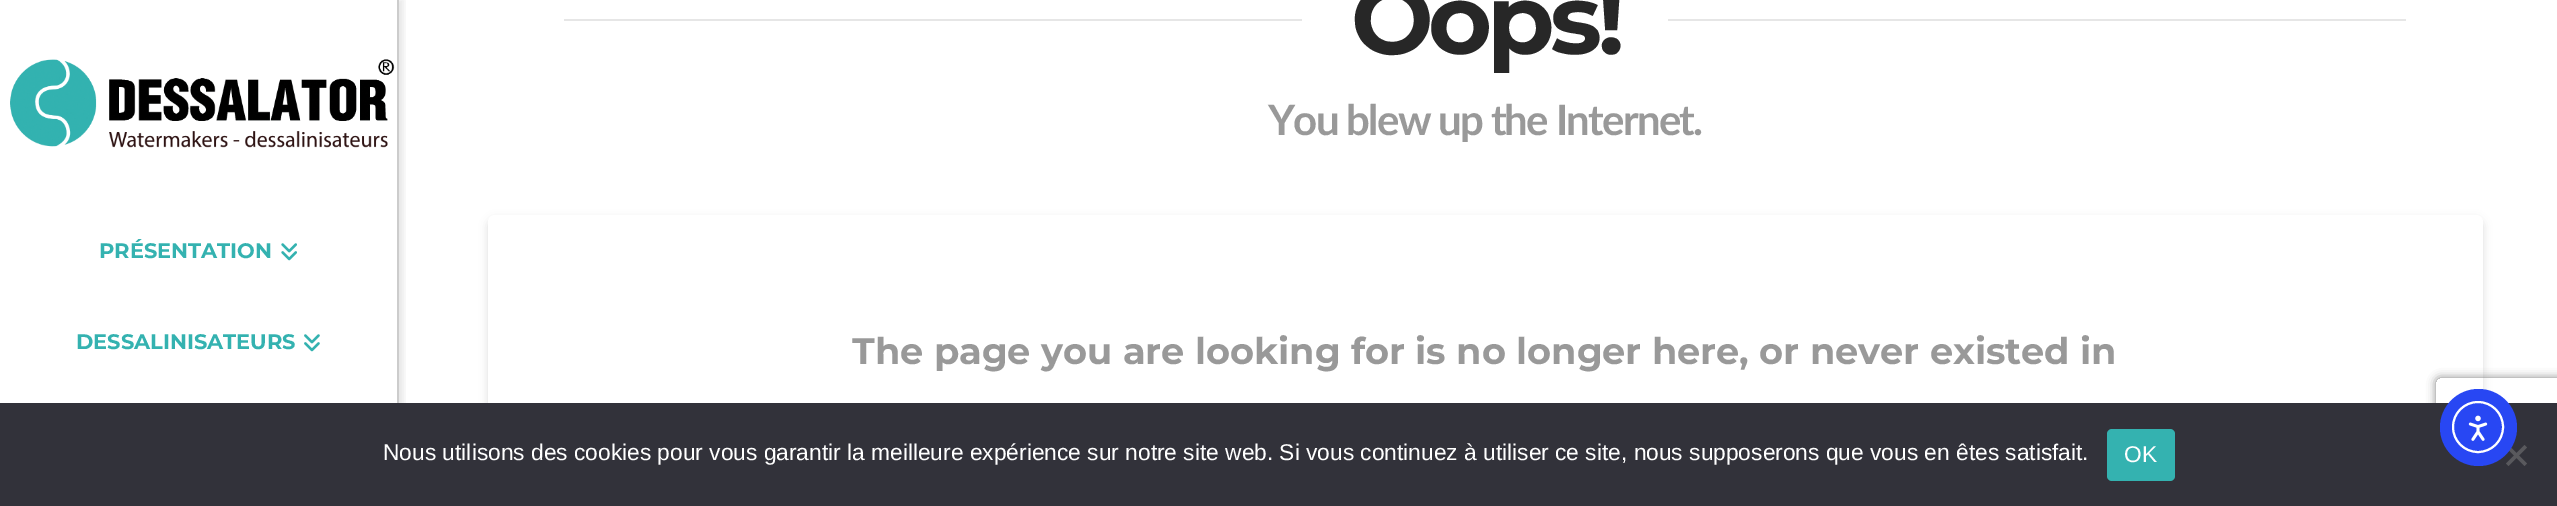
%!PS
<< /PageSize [2557 506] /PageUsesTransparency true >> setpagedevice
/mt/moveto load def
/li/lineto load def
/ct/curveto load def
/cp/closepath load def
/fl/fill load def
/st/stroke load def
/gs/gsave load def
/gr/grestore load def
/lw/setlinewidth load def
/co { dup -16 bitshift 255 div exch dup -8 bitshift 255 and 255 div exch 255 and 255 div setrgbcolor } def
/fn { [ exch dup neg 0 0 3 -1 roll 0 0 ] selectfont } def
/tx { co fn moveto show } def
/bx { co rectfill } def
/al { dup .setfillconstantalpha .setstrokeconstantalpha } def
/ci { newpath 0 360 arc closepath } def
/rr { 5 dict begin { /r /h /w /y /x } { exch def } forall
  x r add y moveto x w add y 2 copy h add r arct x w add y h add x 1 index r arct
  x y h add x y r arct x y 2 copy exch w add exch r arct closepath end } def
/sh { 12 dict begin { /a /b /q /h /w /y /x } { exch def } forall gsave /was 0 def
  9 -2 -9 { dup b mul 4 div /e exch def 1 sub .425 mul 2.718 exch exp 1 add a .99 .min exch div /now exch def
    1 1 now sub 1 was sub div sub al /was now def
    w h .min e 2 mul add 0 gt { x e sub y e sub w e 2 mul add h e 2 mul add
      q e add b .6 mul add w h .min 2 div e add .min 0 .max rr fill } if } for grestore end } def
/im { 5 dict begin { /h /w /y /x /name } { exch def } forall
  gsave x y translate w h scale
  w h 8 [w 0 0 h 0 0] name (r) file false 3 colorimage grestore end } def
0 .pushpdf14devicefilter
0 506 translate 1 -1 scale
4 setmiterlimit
0 0 2557 506 16#FFFFFF bx
564 19 738 2 16#E6E6E6 bx
1668 19 738 2 16#E6E6E6 bx
gs
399 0 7 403 rectclip
16#000000 co
4 0 399 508 0 3.5 .1 sh
gr
397 0 2 403 16#CCCCCC bx
(media/1.raw) 10 59 385 89 im
(media/2.raw) 281 243 16 18 im
(media/3.raw) 304 334 16 18 im
16#000000 co
488 219 1995 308 7 4.5 .13 sh
16#FFFFFF co
488 215 1995 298 7 rr fl
gs
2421 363 mt 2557 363 li 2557 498 li 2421 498 li cp 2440 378 mt 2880 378 li 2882 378 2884 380 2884 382 ct 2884 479 li 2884 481 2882 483 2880 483 ct 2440 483 li 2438 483 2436 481 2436 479 ct 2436 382 li 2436 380 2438 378 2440 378 ct cp eoclip newpath
16#808080 co
2436 378 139 105 4 4.5 1 sh
gr
0 403 2557 103 16#32323A bx
16#34B2B0 co
2107 429 68 52 5 rr fl
16#59595D co
2524.5 445 mt 2527 447.5 li 2508.5 466 li 2506 463.5 li cp fl
2506 447.5 mt 2508.5 445 li 2527 463.5 li 2524.5 466 li cp fl
16#2847F3 co
2478.5 427.5 38.5 ci fl
16#FFFFFF co
2 lw
2478 427 25 ci st
(media/4.raw) 2468 415 20 26 im
/Montserrat-Bold 98 fn
16#272727 co
1351 54 mt -5.25 0 (Oops!) ashow
/Lato-Bold 42 fn
16#999999 co
1268 135 mt -1.75 0 (You blew up the Internet.) ashow
(PRÉSENTATION) 99 258 /Montserrat-Bold 21 16#34B2B0 tx
(DESSALINISATEURS) 76 349 /Montserrat-Bold 21 16#34B2B0 tx
(The page you are looking for is no longer here, or never existed in) 852 364 /Montserrat-Bold 36.75 16#999999 tx
(Nous utilisons des cookies pour vous garantir la meilleure expérience sur notre site web. Si vous continuez à utiliser ce site, nous supposerons que vous en êtes satisfait.) 383 460 /LiberationSans-Regular 22.75 16#FFFFFF tx
(OK) 2124 462 /LiberationSans-Regular 22.75 16#FFFFFF tx
.poppdf14devicefilter showpage
